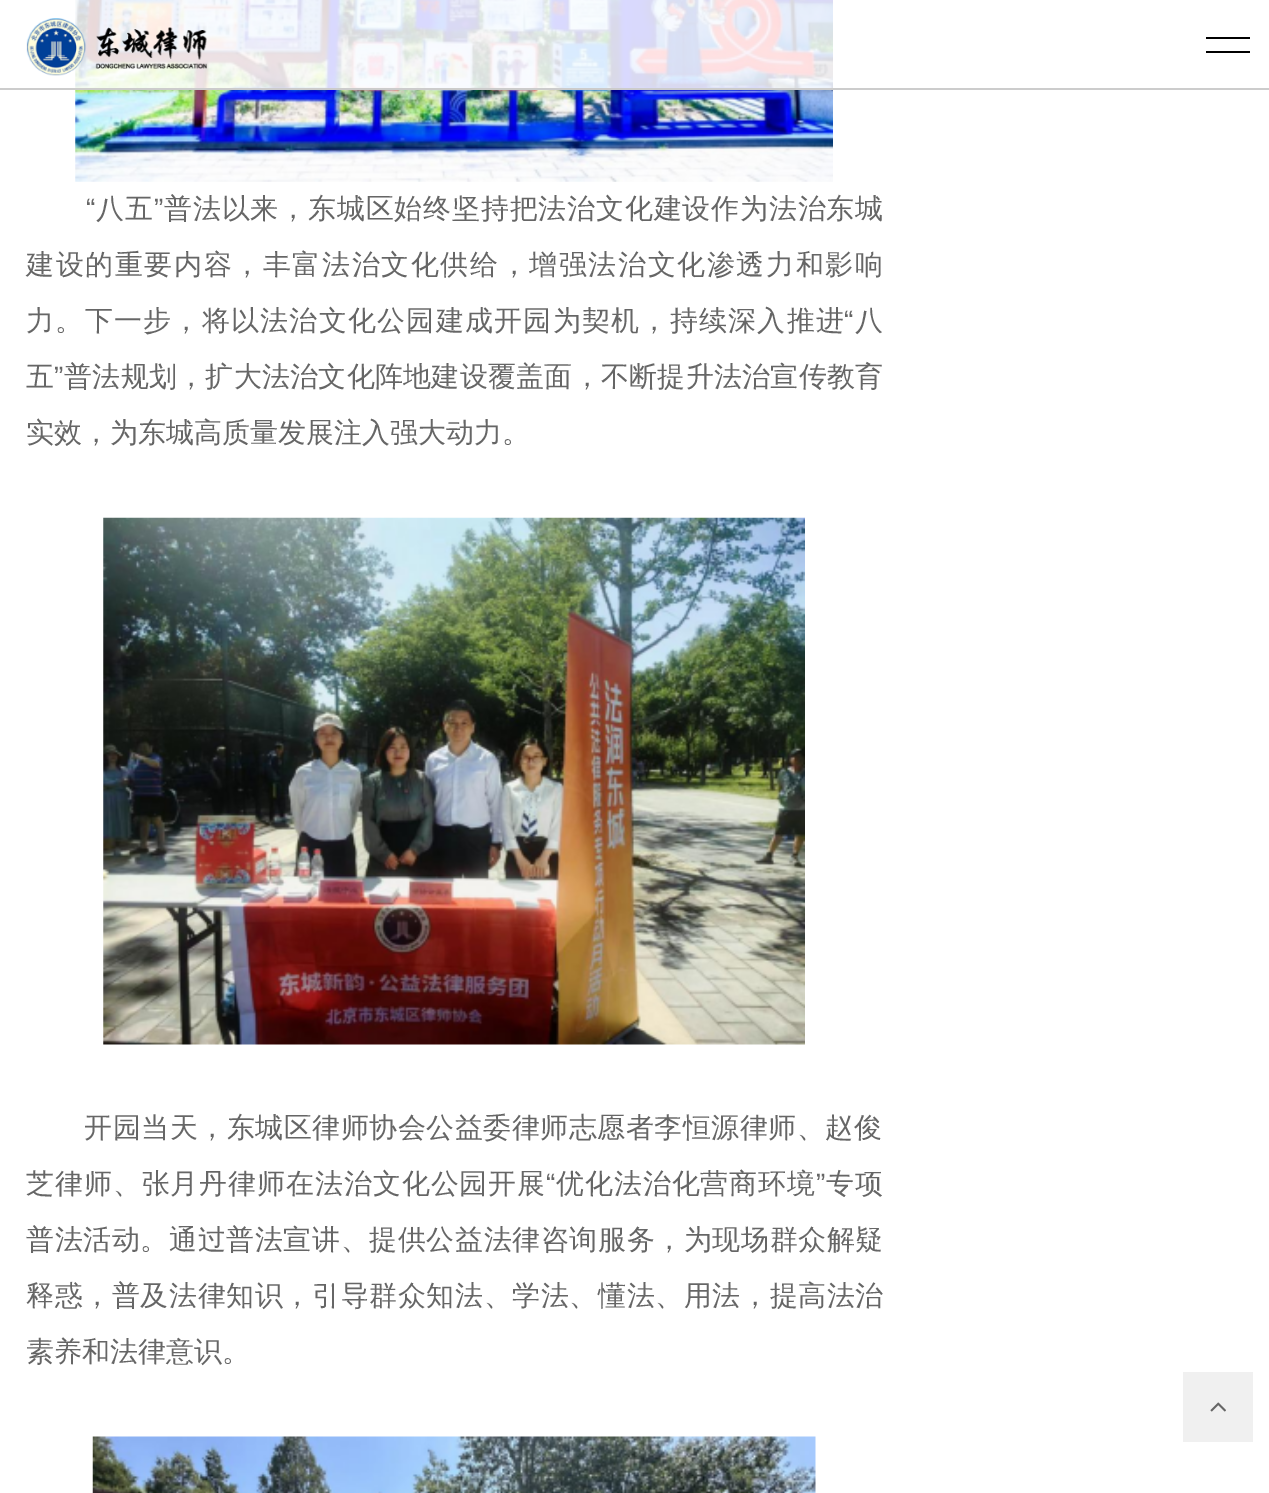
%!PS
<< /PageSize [1269 1493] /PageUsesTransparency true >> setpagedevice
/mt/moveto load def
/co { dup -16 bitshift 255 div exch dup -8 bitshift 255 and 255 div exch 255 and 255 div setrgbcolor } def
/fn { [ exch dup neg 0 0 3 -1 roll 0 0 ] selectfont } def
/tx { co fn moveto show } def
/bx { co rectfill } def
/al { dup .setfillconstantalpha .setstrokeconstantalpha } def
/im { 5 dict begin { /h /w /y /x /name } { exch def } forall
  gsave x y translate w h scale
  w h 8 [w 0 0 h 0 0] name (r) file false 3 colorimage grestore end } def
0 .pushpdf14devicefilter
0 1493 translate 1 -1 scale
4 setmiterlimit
0 0 1269 1493 16#FFFFFF bx
(media/2.raw) 75 0 758 182 im
0.85 al
75 0 758 88 16#FFFFFF bx
1 al
0 88 1269 2 16#CCCCCC bx
(media/1.raw) 26 18 181 58 im
1206 37 44 2 16#000000 bx
1206 51 44 2 16#000000 bx
(media/3.raw) 103 517 702 528 im
(media/4.raw) 92 1436 724 57 im
1183 1372 70 70 16#F0F0F0 bx
(media/5.raw) 1210 1402 16 10 im
/LiberationSans-Regular 28 fn
16#666666 co
86 218 mt .8 0 (“) ashow
/WenQuanYiZenHei-Medium 28 fn
96 218 mt .8 0 (八五) ashow
/LiberationSans-Regular 28 fn
154 218 mt .8 0 (”) ashow
/WenQuanYiZenHei-Medium 28 fn
164 218 mt .8 0 (普法以来，东城区始终坚持把法治文化建设作为法治东城) ashow
26 274 mt 1.6 0 (建设的重要内容，丰富法治文化供给，增强法治文化渗透力和影响) ashow
26 330 mt 1.25 0 (力。下一步，将以法治文化公园建成开园为契机，持续深入推进) ashow
/LiberationSans-Regular 28 fn
844 330 mt 1.25 0 (“) ashow
/WenQuanYiZenHei-Medium 28 fn
855 330 mt 1.25 0 (八) ashow
26 386 mt .25 0 (五) ashow
/LiberationSans-Regular 28 fn
54 386 mt .25 0 (”) ashow
/WenQuanYiZenHei-Medium 28 fn
64 386 mt .25 0 (普法规划，扩大法治文化阵地建设覆盖面，不断提升法治宣传教育) ashow
(实效，为东城高质量发展注入强大动力。) 26 442 /WenQuanYiZenHei-Medium 28 16#666666 tx
84 1137 mt .5 0 (开园当天，东城区律师协会公益委律师志愿者李恒源律师、赵俊) ashow
26 1193 mt .9 0 (芝律师、张月丹律师在法治文化公园开展) ashow
/LiberationSans-Regular 28 fn
546 1193 mt .9 0 (“) ashow
/WenQuanYiZenHei-Medium 28 fn
556 1193 mt .9 0 (优化法治化营商环境) ashow
/LiberationSans-Regular 28 fn
816 1193 mt .9 0 (”) ashow
/WenQuanYiZenHei-Medium 28 fn
826 1193 mt .9 0 (专项) ashow
26 1249 mt .6 0 (普法活动。通过普法宣讲、提供公益法律咨询服务，为现场群众解疑) ashow
26 1305 mt .6 0 (释惑，普及法律知识，引导群众知法、学法、懂法、用法，提高法治) ashow
(素养和法律意识。) 26 1361 /WenQuanYiZenHei-Medium 28 16#666666 tx
.poppdf14devicefilter showpage
